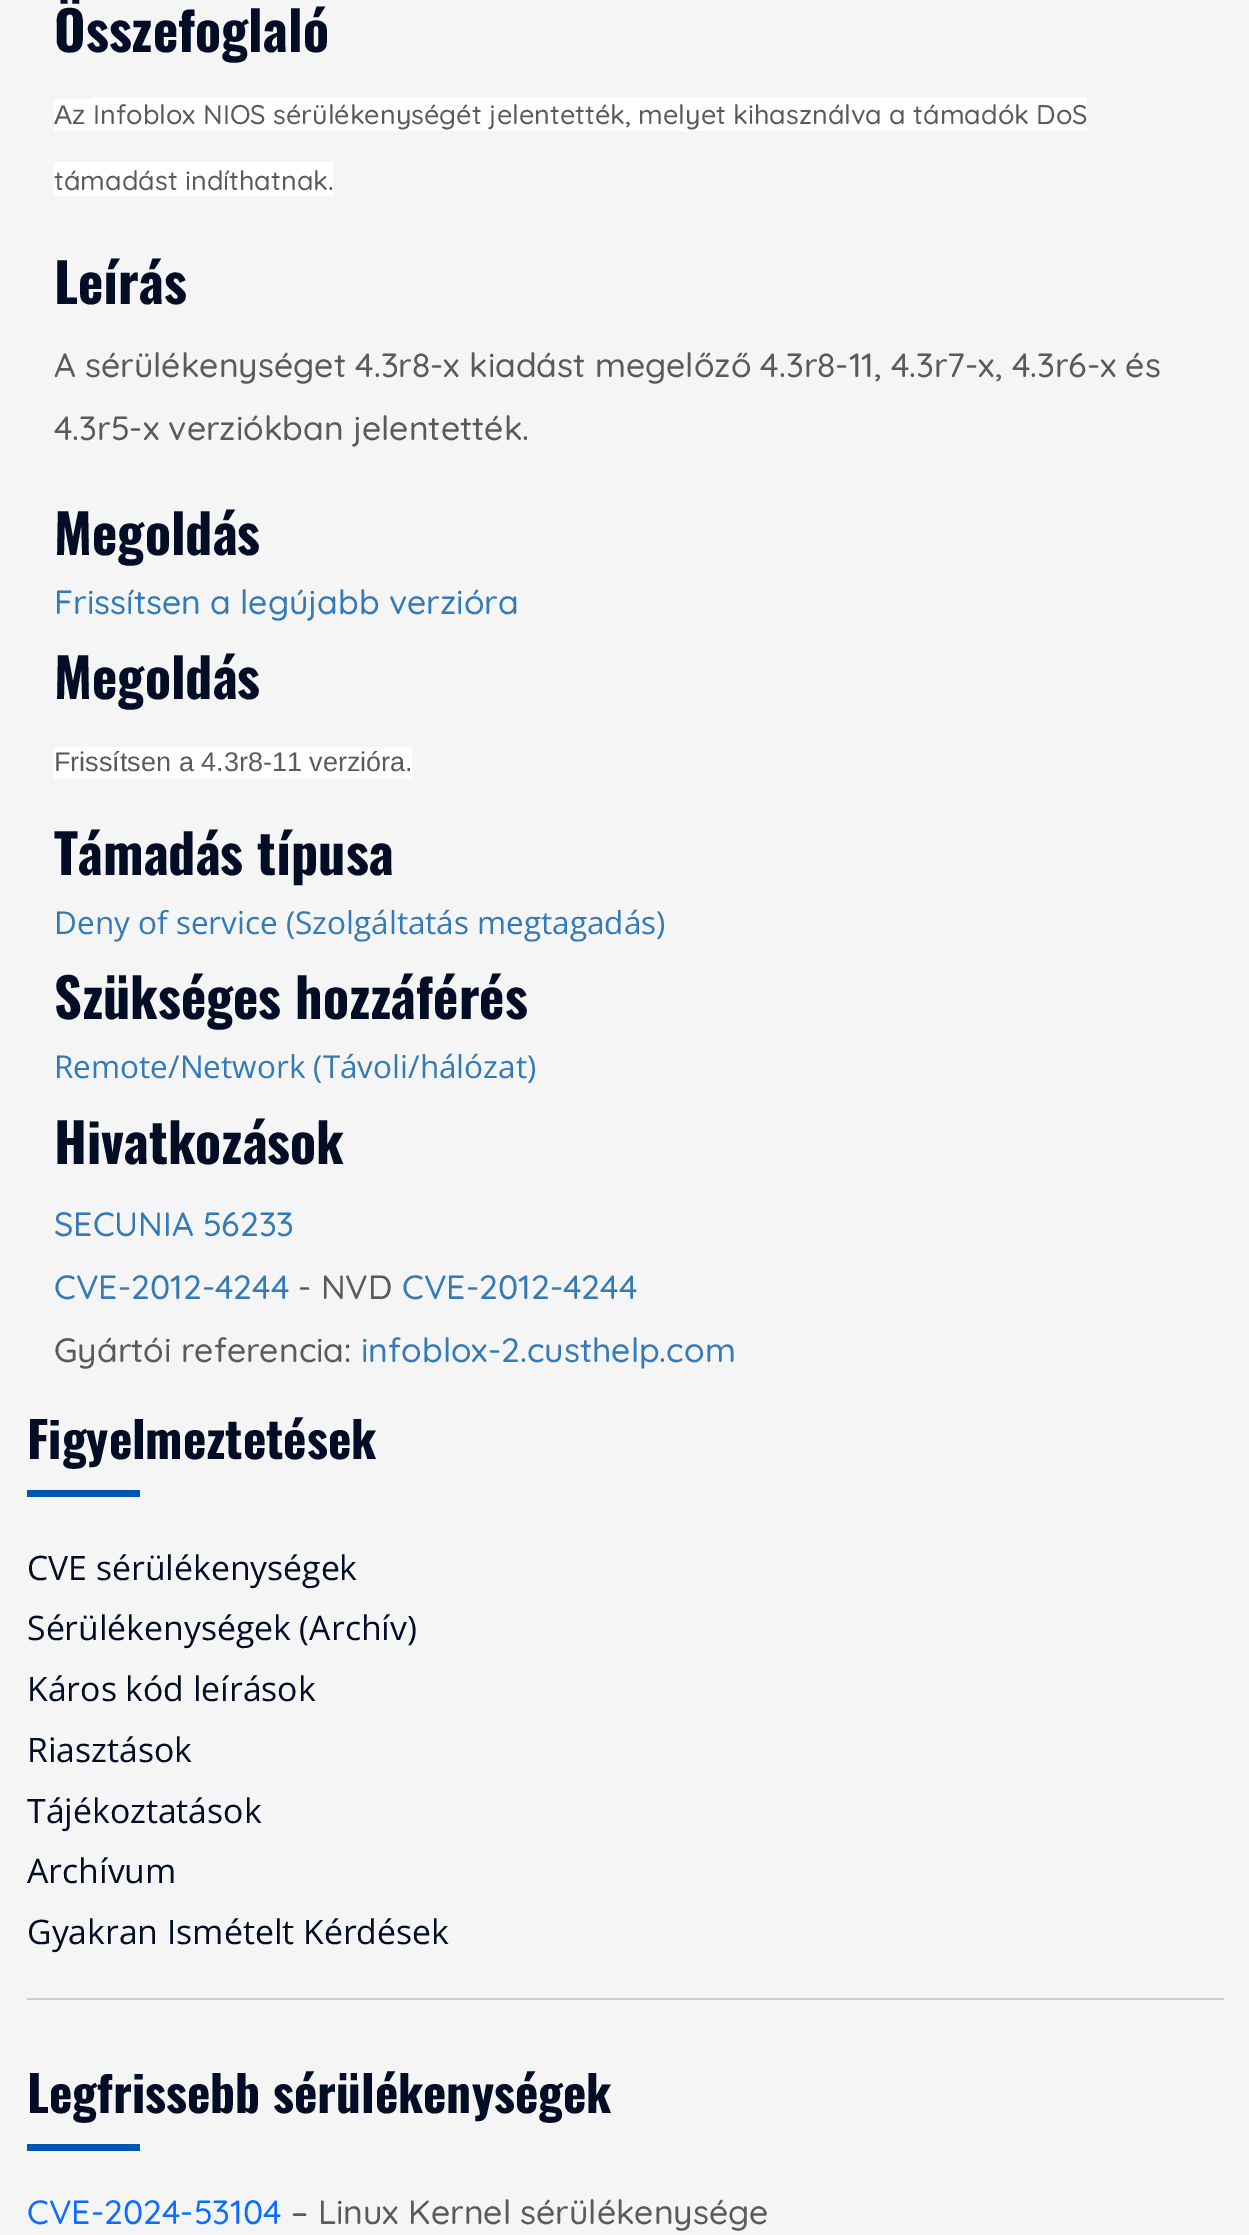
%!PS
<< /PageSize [1249 2235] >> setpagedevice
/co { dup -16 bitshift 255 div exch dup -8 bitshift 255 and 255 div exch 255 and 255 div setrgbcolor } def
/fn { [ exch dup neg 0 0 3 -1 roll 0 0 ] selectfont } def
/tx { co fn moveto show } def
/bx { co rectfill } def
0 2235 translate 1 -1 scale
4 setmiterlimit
0 0 1249 2235 16#F5F5F5 bx
54 99 38 32 16#FFFFFF bx
92 97 995 34 16#FFFFFF bx
54 162 279 34 16#FFFFFF bx
54 747 358 32 16#FFFFFF bx
27 1490 113 7 16#0056B3 bx
27 1998 1197 2 16#CECECE bx
27 2144 113 7 16#0056B3 bx
(Összefoglaló) 54 52 /Oswald-Bold 54 16#030D26 tx
(Az) 54 124 /LiberationSans-Regular 27 16#5A5A5A tx
(Infoblox NIOS sérülékenységét jelentették, melyet kihasználva a támadók DoS) 93 124 /Quicksand-Medium 27 16#5A5A5A tx
(támadást indíthatnak.) 54 190 /Quicksand-Medium 27 16#5A5A5A tx
(Leírás) 54 304 /Oswald-Bold 54 16#030D26 tx
(A sérülékenységet 4.3r8-x kiadást megelőző 4.3r8-11, 4.3r7-x, 4.3r6-x és) 54 377 /Quicksand-Medium 33.75 16#5A5A5A tx
(4.3r5-x verziókban jelentették.) 54 440 /Quicksand-Medium 33.75 16#5A5A5A tx
(Megoldás) 54 555 /Oswald-Bold 54 16#030D26 tx
(Frissítsen a legújabb verzióra) 54 614 /Quicksand-Medium 33.75 16#337AB7 tx
(Megoldás) 54 699 /Oswald-Bold 54 16#030D26 tx
(Frissítsen a 4.3r8-11 verzióra.) 54 771 /LiberationSans-Regular 27 16#5A5A5A tx
(Támadás típusa) 54 875 /Oswald-Bold 54 16#030D26 tx
(Deny of service \(Szolgáltatás megtagadás\)) 54 934 /OpenSans-Regular 31.5 16#337AB7 tx
(Szükséges hozzáférés) 54 1019 /Oswald-Bold 54 16#030D26 tx
(Remote/Network \(Távoli/hálózat\)) 54 1078 /OpenSans-Regular 31.5 16#337AB7 tx
(Hivatkozások) 54 1164 /Oswald-Bold 54 16#030D26 tx
(SECUNIA 56233) 54 1236 /Quicksand-Medium 33.75 16#337AB7 tx
(CVE-2012-4244) 54 1299 /Quicksand-Medium 33.75 16#337AB7 tx
(- NVD) 298 1299 /Quicksand-Medium 33.75 16#5A5A5A tx
(CVE-2012-4244) 402 1299 /Quicksand-Medium 33.75 16#337AB7 tx
(Gyártói referencia:) 54 1362 /Quicksand-Medium 33.75 16#5A5A5A tx
(infoblox-2.custhelp.com) 361 1362 /Quicksand-Medium 33.75 16#337AB7 tx
(Figyelmeztetések) 27 1459 /Oswald-Bold 49.5 16#030D26 tx
(CVE sérülékenységek) 27 1580 /OpenSans-Regular 33.75 16#030D26 tx
(Sérülékenységek \(Archív\)) 27 1640 /OpenSans-Regular 33.75 16#030D26 tx
(Káros kód leírások) 27 1701 /OpenSans-Regular 33.75 16#030D26 tx
(Riasztások) 27 1762 /OpenSans-Regular 33.75 16#030D26 tx
(Tájékoztatások) 27 1823 /OpenSans-Regular 33.75 16#030D26 tx
(Archívum) 27 1883 /OpenSans-Regular 33.75 16#030D26 tx
(Gyakran Ismételt Kérdések) 27 1944 /OpenSans-Regular 33.75 16#030D26 tx
(Legfrissebb sérülékenységek) 27 2113 /Oswald-Bold 49.5 16#030D26 tx
(CVE-2024-53104) 27 2224 /Quicksand-Medium 33.75 16#0D6EFD tx
(– Linux Kernel sérülékenysége) 291 2224 /Quicksand-Medium 33.75 16#5A5A5A tx
showpage
